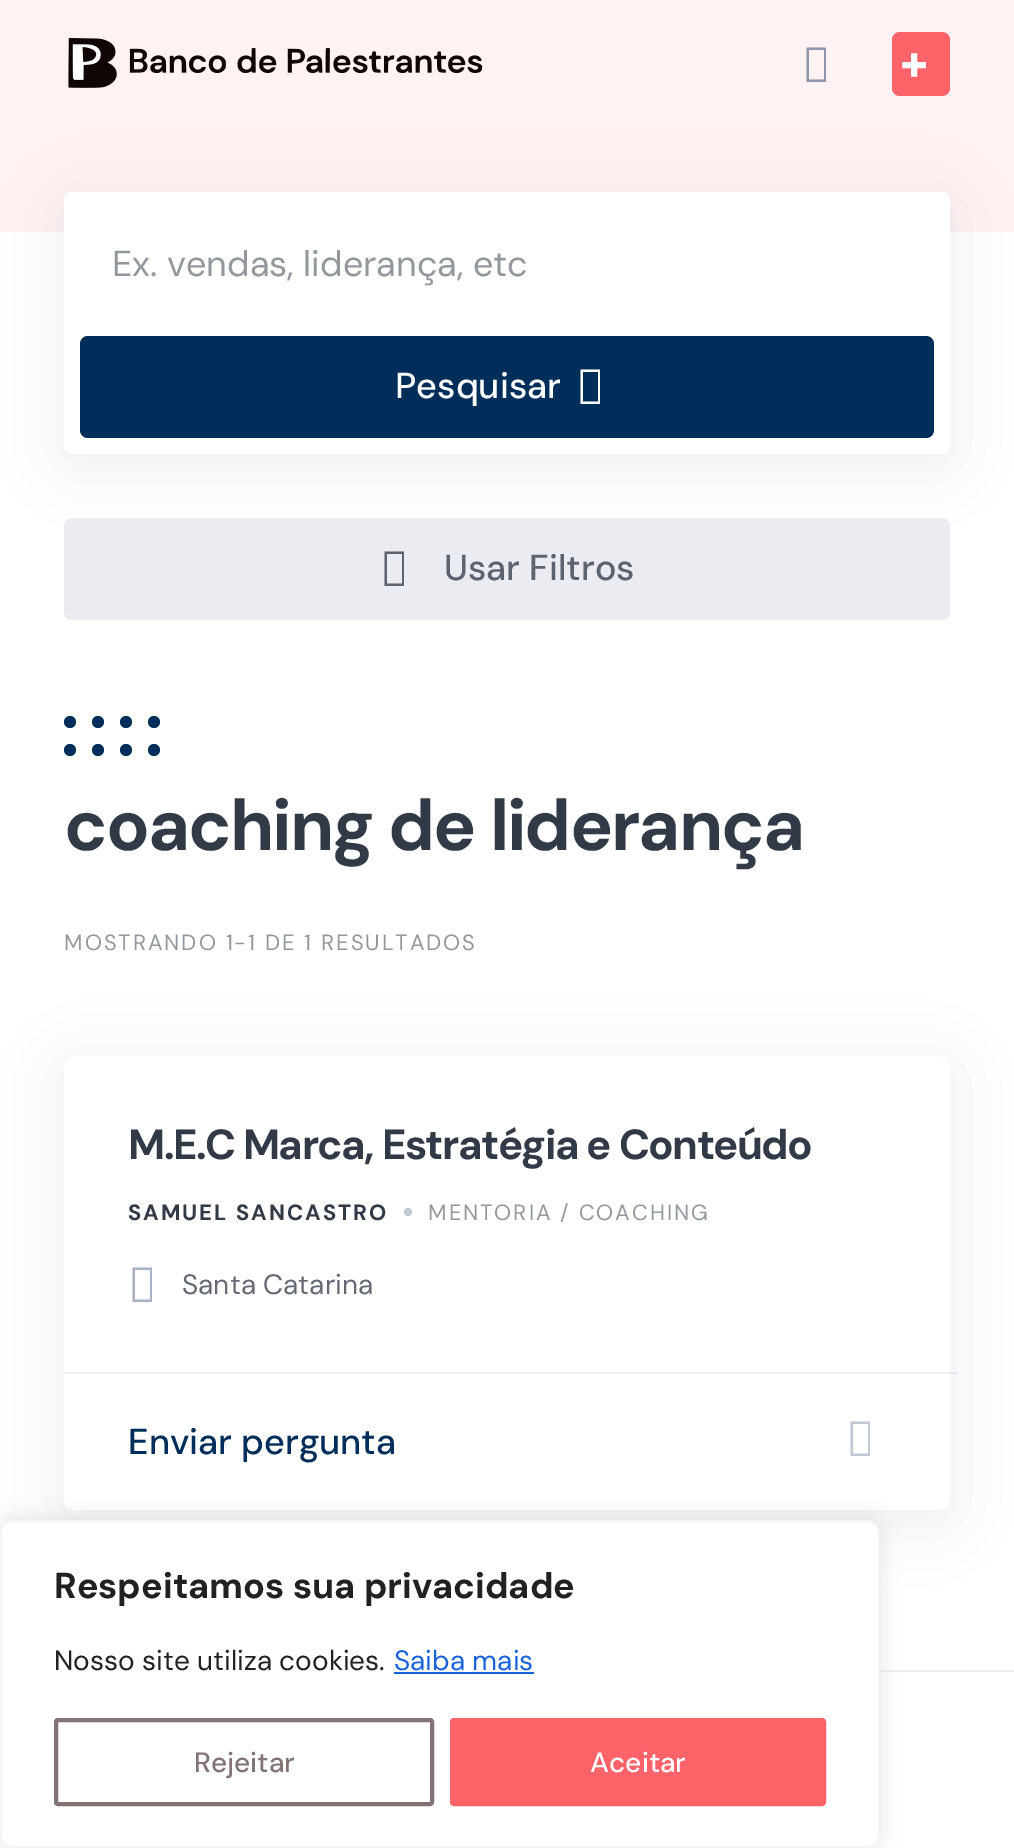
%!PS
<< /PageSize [1014 1848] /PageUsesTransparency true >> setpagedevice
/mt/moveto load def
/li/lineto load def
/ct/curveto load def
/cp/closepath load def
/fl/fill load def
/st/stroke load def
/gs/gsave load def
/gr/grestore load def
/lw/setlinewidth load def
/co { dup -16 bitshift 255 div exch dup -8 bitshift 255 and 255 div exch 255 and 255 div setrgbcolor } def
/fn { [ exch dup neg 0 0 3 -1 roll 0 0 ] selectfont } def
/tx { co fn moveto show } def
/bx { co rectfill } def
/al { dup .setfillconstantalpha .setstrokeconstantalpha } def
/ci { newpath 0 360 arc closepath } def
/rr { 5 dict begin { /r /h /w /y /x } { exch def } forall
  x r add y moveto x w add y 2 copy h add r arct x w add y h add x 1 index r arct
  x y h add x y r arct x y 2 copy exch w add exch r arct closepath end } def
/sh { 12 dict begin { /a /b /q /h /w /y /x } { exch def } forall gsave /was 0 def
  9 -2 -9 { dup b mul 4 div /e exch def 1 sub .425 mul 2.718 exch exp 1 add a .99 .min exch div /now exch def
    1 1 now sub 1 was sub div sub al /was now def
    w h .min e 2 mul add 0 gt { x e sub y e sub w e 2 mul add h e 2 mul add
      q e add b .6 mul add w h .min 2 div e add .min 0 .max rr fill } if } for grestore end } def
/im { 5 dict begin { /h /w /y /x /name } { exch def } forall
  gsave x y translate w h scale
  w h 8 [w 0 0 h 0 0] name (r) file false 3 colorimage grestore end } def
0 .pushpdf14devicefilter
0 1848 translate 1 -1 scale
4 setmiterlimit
0 0 1014 1848 16#FFFFFF bx
0 0 1014 232 16#FFF2F3 bx
(media/1.raw) 68 38 415 50 im
16#8F95AC co
806.5 82 mt 806.5 47.5 li 826 47.5 li 826 82 li cp 809 79.5 mt 824 79.5 li 824 50 li 809 50 li cp fl
16#FF636A co
892 32 58 64 8 rr fl
16#072456 co
64 202 886 262 8 30 .07 sh
16#FFFFFF co
64 192 886 262 8 rr fl
16#002E5B co
80 336 854 102 8 rr fl
16#FFFFFF co
580.5 404 mt 580.5 369.5 li 600 369.5 li 600 404 li cp 583 401.5 mt 598 401.5 li 598 372 li 583 372 li cp fl
16#EAECF1 co
64 518 886 102 8 rr fl
16#5C626E co
384.5 586 mt 384.5 551.5 li 404 551.5 li 404 586 li cp 387 583.5 mt 402 583.5 li 402 554 li 387 554 li cp fl
16#002E5B co
154 750 6 ci fl
126 750 6 ci fl
98 750 6 ci fl
70 750 6 ci fl
154 722 6 ci fl
126 722 6 ci fl
98 722 6 ci fl
70 722 6 ci fl
gs
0 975 mt 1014 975 li 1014 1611 li 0 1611 li cp 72 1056 mt 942 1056 li 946.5 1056 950 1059.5 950 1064 ct 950 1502 li 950 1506.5 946.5 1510 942 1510 ct 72 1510 li 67.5 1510 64 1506.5 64 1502 ct 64 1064 li 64 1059.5 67.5 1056 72 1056 ct cp eoclip newpath
16#072456 co
64 1066 886 454 8 30 .07 sh
gr
16#C1C8D5 co
408 1212 4 ci fl
16#A8B2C4 co
132.5 1302 mt 132.5 1267.5 li 152 1267.5 li 152 1302 li cp 135 1299.5 mt 150 1299.5 li 150 1270 li 135 1270 li cp fl
0.07 al
64 1372 894 2 16#072456 bx
1 al
16#C1C8D5 co
850.5 1456 mt 850.5 1421.5 li 870 1421.5 li 870 1456 li cp 853 1453.5 mt 868 1453.5 li 868 1424 li 853 1424 li cp fl
880 1670 134 2 16#ECEFF2 bx
16#ACABAB co
0 1518 880 328 12 10 .3 sh
16#FFFFFF co
1 1521 878 326 11 rr gs fl gr
16#F4F4F4 co
2 lw
st
394 1672 140 2 16#1863DC bx
16#837374 co
4 lw
56 1720 376 84 2 rr st
16#FF636A co
452 1720 372 84 2 rr gs fl gr
st
(+) 900 82 /NotoSans-Black 48 16#FFFFFF tx
(Ex. vendas, liderança, etc) 112 276 /DMSans-Regular 36 16#93979E tx
(Pesquisar) 395 398 /DMSans-Medium 36 16#FFFFFF tx
(Usar Filtros) 444 580 /DMSans-Medium 36 16#5C626E tx
/DMSans-Bold 72 fn
16#333A47 co
64 850 mt -2 0 (coaching de liderança) ashow
/DMSans-Regular 22 fn
16#93979E co
64 950 mt 2 0 (MOSTRANDO 1-1 DE 1 RESULTADOS) ashow
/DMSans-Bold 42 fn
16#333A47 co
128 1159 mt -1.5 0 (M.E.C Marca, Estratégia e Conteúdo) ashow
/DMSans-Bold 22 fn
128 1220 mt 2 0 (SAMUEL SANCASTRO) ashow
/DMSans-Regular 22 fn
16#93979E co
428 1220 mt 2 0 (MENTORIA / COACHING) ashow
(Santa Catarina) 182 1294 /DMSans-Regular 28 16#636873 tx
(Enviar pergunta) 128 1454 /DMSans-Medium 36 16#002E5B tx
(Respeitamos sua privacidade) 54 1598 /DMSans-Bold 36 16#212121 tx
(Nosso site utiliza cookies.) 54 1670 /DMSans-Regular 28 16#212121 tx
(Saiba mais) 394 1670 /DMSans-Regular 28 16#1863DC tx
(Rejeitar) 194 1772 /DMSans-Medium 28 16#837374 tx
(Aceitar) 590 1772 /DMSans-Medium 28 16#FFFFFF tx
.poppdf14devicefilter showpage
